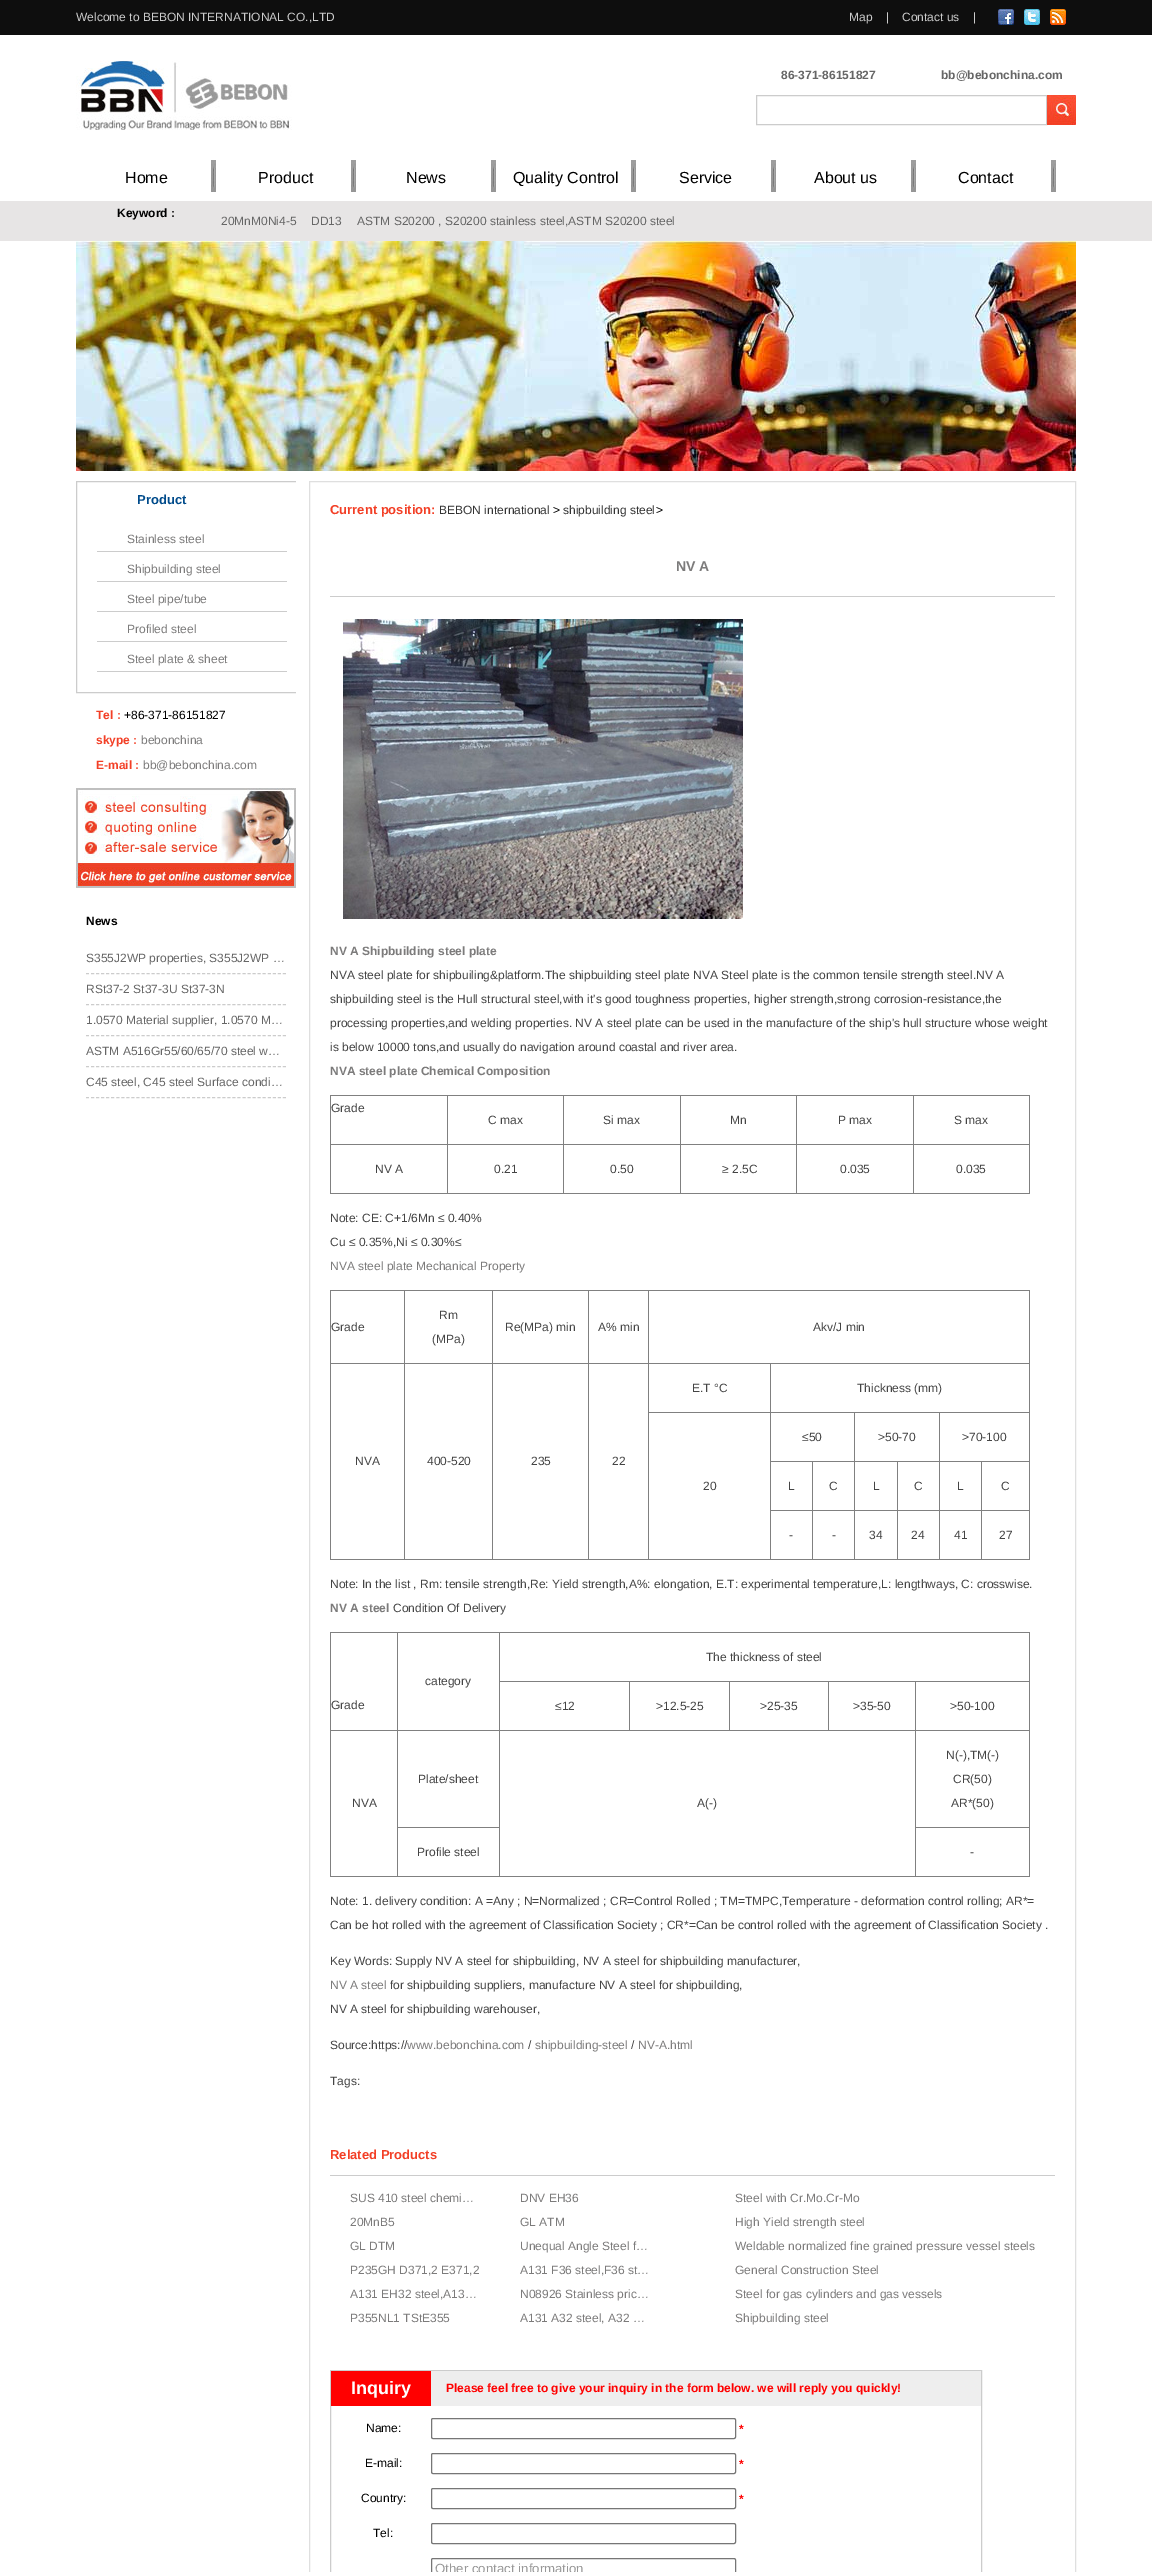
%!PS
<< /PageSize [1152 2572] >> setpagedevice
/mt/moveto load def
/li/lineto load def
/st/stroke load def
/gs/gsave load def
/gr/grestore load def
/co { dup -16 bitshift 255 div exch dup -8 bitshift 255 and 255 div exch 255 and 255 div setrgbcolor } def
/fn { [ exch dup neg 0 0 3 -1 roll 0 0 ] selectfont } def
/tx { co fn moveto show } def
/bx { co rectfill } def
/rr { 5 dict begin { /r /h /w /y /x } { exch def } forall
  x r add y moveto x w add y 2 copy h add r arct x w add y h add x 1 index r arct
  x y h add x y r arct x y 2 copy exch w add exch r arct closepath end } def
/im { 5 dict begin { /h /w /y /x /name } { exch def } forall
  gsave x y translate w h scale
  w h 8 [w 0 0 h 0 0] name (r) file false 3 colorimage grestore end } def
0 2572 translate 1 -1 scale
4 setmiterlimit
0 0 1152 2572 16#FFFFFF bx
0 0 1152 35 16#0E0E0E bx
(media/1.raw) 998 9 16 16 im
(media/2.raw) 1024 9 16 16 im
(media/3.raw) 1050 9 16 16 im
(media/4.raw) 76 60 216 70 im
16#CCCCCC co
756.5 95.5 290 29 rectstroke
(media/5.raw) 1047 95 29 30 im
(media/6.raw) 211 160 5 32 im
(media/6.raw) 351 160 5 32 im
(media/6.raw) 491 160 5 32 im
(media/6.raw) 631 160 5 32 im
(media/6.raw) 771 160 5 32 im
(media/6.raw) 911 160 5 32 im
(media/6.raw) 1051 160 5 32 im
0 201 1152 40 16#E7E5E5 bx
(media/7.raw) 76 241 1000 230 im
gs
76 481 220 653 rectclip
16#CCCCCC co
76.5 481.5 221 211 rectstroke
gr
97 551 190 1 16#CCCCCC bx
97 581 190 1 16#CCCCCC bx
97 611 190 1 16#CCCCCC bx
97 641 190 1 16#CCCCCC bx
97 671 190 1 16#CCCCCC bx
(media/8.raw) 76 788 220 100 im
[3 2.05] 0 setdash
86 973.5 mt 286 973.5 li st
86 1004.5 mt 286 1004.5 li st
86 1035.5 mt 286 1035.5 li st
86 1066.5 mt 286 1066.5 li st
86 1097.5 mt 286 1097.5 li st
16#DFDFDF co
[] 0 setdash
309.5 481.5 766 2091 rectstroke
330 596 725 1 16#CCCCCC bx
(media/9.raw) 343 619 400 300 im
330 1095 700 1 16#808080 bx
1029 1095 1 99 16#808080 bx
330 1193 700 1 16#808080 bx
330 1095 1 99 16#808080 bx
913 1144 117 1 16#808080 bx
913 1144 1 50 16#808080 bx
796 1144 118 1 16#808080 bx
796 1144 1 50 16#808080 bx
680 1144 117 1 16#808080 bx
680 1144 1 50 16#808080 bx
563 1144 118 1 16#808080 bx
563 1144 1 50 16#808080 bx
447 1144 117 1 16#808080 bx
447 1144 1 50 16#808080 bx
330 1144 118 1 16#808080 bx
447 1095 1 50 16#808080 bx
563 1095 1 50 16#808080 bx
680 1095 1 50 16#808080 bx
796 1095 1 50 16#808080 bx
913 1095 1 50 16#808080 bx
330 1290 700 1 16#808080 bx
1029 1290 1 270 16#808080 bx
330 1559 700 1 16#808080 bx
330 1290 1 270 16#808080 bx
770 1363 260 1 16#808080 bx
939 1412 91 1 16#808080 bx
981 1461 49 1 16#808080 bx
981 1510 49 1 16#808080 bx
981 1510 1 50 16#808080 bx
939 1510 43 1 16#808080 bx
981 1461 1 50 16#808080 bx
939 1461 43 1 16#808080 bx
939 1510 1 50 16#808080 bx
897 1510 43 1 16#808080 bx
939 1461 1 50 16#808080 bx
897 1461 43 1 16#808080 bx
939 1412 1 50 16#808080 bx
854 1412 86 1 16#808080 bx
897 1510 1 50 16#808080 bx
854 1510 44 1 16#808080 bx
897 1461 1 50 16#808080 bx
854 1461 44 1 16#808080 bx
854 1510 1 50 16#808080 bx
812 1510 43 1 16#808080 bx
854 1461 1 50 16#808080 bx
812 1461 43 1 16#808080 bx
854 1412 1 50 16#808080 bx
770 1412 85 1 16#808080 bx
812 1510 1 50 16#808080 bx
770 1510 43 1 16#808080 bx
812 1461 1 50 16#808080 bx
770 1461 43 1 16#808080 bx
770 1510 1 50 16#808080 bx
770 1461 1 50 16#808080 bx
770 1412 1 50 16#808080 bx
648 1412 123 1 16#808080 bx
770 1363 1 50 16#808080 bx
648 1363 123 1 16#808080 bx
648 1412 1 148 16#808080 bx
648 1363 1 50 16#808080 bx
588 1363 61 1 16#808080 bx
588 1363 1 197 16#808080 bx
492 1363 97 1 16#808080 bx
492 1363 1 197 16#808080 bx
404 1363 89 1 16#808080 bx
404 1363 1 197 16#808080 bx
330 1363 75 1 16#808080 bx
404 1290 1 74 16#808080 bx
492 1290 1 74 16#808080 bx
588 1290 1 74 16#808080 bx
648 1290 1 74 16#808080 bx
330 1632 700 1 16#808080 bx
1029 1632 1 245 16#808080 bx
330 1876 700 1 16#808080 bx
330 1632 1 245 16#808080 bx
915 1730 115 1 16#808080 bx
915 1827 115 1 16#808080 bx
915 1827 1 50 16#808080 bx
915 1730 1 98 16#808080 bx
499 1730 417 1 16#808080 bx
397 1827 103 1 16#808080 bx
499 1730 1 147 16#808080 bx
397 1730 103 1 16#808080 bx
397 1827 1 50 16#808080 bx
397 1730 1 98 16#808080 bx
330 1730 68 1 16#808080 bx
397 1632 1 99 16#808080 bx
915 1681 115 1 16#808080 bx
915 1681 1 50 16#808080 bx
828 1681 88 1 16#808080 bx
828 1681 1 50 16#808080 bx
729 1681 100 1 16#808080 bx
729 1681 1 50 16#808080 bx
629 1681 101 1 16#808080 bx
629 1681 1 50 16#808080 bx
499 1681 131 1 16#808080 bx
499 1632 1 99 16#808080 bx
330 2175 725 1 16#CCCCCC bx
330.5 2370.5 651 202 rectstroke
431 2371 550 35 16#EEEEEE bx
331 2371 100 35 16#FF0000 bx
16#767676 co
431.5 2418.5 304 20 1.5 rr st
431.5 2453.5 304 20 1.5 rr st
431.5 2488.5 304 20 1.5 rr st
431.5 2523.5 304 20 1.5 rr st
431.5 2558.5 304 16 1.5 rr st
(Welcome to BEBON INTERNATIONAL CO.,LTD) 76 21 /LiberationSans-Regular 12 16#CCCCCC tx
(Map) 849 21 /LiberationSans-Regular 12 16#CCCCCC tx
(|) 886 21 /LiberationSans-Regular 12 16#CCCCCC tx
(Contact us) 902 21 /LiberationSans-Regular 12 16#CCCCCC tx
(|) 973 21 /LiberationSans-Regular 12 16#CCCCCC tx
(86-371-86151827) 781 79 /LiberationSans-Bold 12 16#666666 tx
(bb@bebonchina.com) 941 79 /LiberationSans-Bold 12 16#666666 tx
(Home) 125 183 /LiberationSans-Regular 16 16#000000 tx
(Product) 258 183 /LiberationSans-Regular 16 16#000000 tx
(News) 406 183 /LiberationSans-Regular 16 16#000000 tx
(Quality Control) 513 183 /LiberationSans-Regular 16 16#000000 tx
(Service) 679 183 /LiberationSans-Regular 16 16#000000 tx
(About us) 814 183 /LiberationSans-Regular 16 16#000000 tx
(Contact) 958 183 /LiberationSans-Regular 16 16#000000 tx
(Keyword :) 117 217 /LiberationSans-Bold 12 16#000000 tx
(20MnM0Ni4-5) 221 225 /LiberationSans-Regular 12 16#666666 tx
(DD13) 311 225 /LiberationSans-Regular 12 16#666666 tx
(ASTM S20200 , S20200 stainless steel,ASTM S20200 steel) 357 225 /LiberationSans-Regular 12 16#666666 tx
(Product) 137 504 /LiberationSans-Bold 13 16#004B8B tx
(Stainless steel) 127 543 /LiberationSans-Regular 12 16#7C7B7B tx
(Shipbuilding steel) 127 573 /LiberationSans-Regular 12 16#7C7B7B tx
(Steel pipe/tube) 127 603 /LiberationSans-Regular 12 16#7C7B7B tx
(Profiled steel) 127 633 /LiberationSans-Regular 12 16#7C7B7B tx
(Steel plate & sheet) 127 663 /LiberationSans-Regular 12 16#7C7B7B tx
(Tel :) 96 719 /LiberationSans-Bold 12 16#F33F26 tx
(+86-371-86151827) 124 719 /LiberationSans-Regular 12 16#000000 tx
(skype :) 96 744 /LiberationSans-Bold 12 16#F33F26 tx
(bebonchina) 141 744 /LiberationSans-Regular 12 16#7C7B7B tx
(E-mail :) 96 769 /LiberationSans-Bold 12 16#F33F26 tx
(bb@bebonchina.com) 143 769 /LiberationSans-Regular 12 16#7C7B7B tx
(News) 86 925 /LiberationSans-Bold 12 16#000000 tx
(S355J2WP properties, S355J2WP …) 86 962 /LiberationSans-Regular 12 16#666666 tx
(RSt37-2 St37-3U St37-3N) 86 993 /LiberationSans-Regular 12 16#666666 tx
(1.0570 Material supplier, 1.0570 M…) 86 1024 /LiberationSans-Regular 12 16#666666 tx
(ASTM A516Gr55/60/65/70 steel w…) 86 1055 /LiberationSans-Regular 12 16#666666 tx
(C45 steel, C45 steel Surface condi…) 86 1086 /LiberationSans-Regular 12 16#666666 tx
(Current position:) 330 514 /LiberationSans-Bold 13 16#F33F26 tx
(BEBON international) 439 514 /LiberationSans-Regular 12 16#333333 tx
(>) 553 514 /LiberationSans-Regular 12 16#000000 tx
(shipbuilding steel) 563 514 /LiberationSans-Regular 12 16#333333 tx
(>) 656 514 /LiberationSans-Regular 12 16#000000 tx
(NV A) 676 571 /LiberationSans-Bold 14 16#7C7B7B tx
(NV A Shipbuilding steel plate) 330 955 /LiberationSans-Bold 12 16#7C7B7B tx
(NVA steel plate for shipbuiling&platform.The shipbuilding steel plate NVA Steel plate is the common tensile strength steel.NV A) 330 979 /LiberationSans-Regular 12 16#444444 tx
(shipbuilding steel is the Hull structural steel,with it's good toughness properties, higher strength,strong corrosion-resistance,the) 330 1003 /LiberationSans-Regular 12 16#444444 tx
(processing properties,and welding properties. NV A steel plate can be used in the manufacture of the ship's hull structure whose weight) 330 1027 /LiberationSans-Regular 12 16#444444 tx
(is below 10000 tons,and usually do navigation around coastal and river area.) 330 1051 /LiberationSans-Regular 12 16#444444 tx
(NVA steel plate Chemical Composition) 330 1075 /LiberationSans-Bold 12 16#7C7B7B tx
(Grade) 331 1112 /LiberationSans-Regular 12 16#444444 tx
(C max) 488 1124 /LiberationSans-Regular 12 16#444444 tx
(Si max) 603 1124 /LiberationSans-Regular 12 16#444444 tx
(Mn) 730 1124 /LiberationSans-Regular 12 16#444444 tx
(P max) 838 1124 /LiberationSans-Regular 12 16#444444 tx
(S max) 954 1124 /LiberationSans-Regular 12 16#444444 tx
(NV A) 375 1173 /LiberationSans-Regular 12 16#444444 tx
(0.21) 494 1173 /LiberationSans-Regular 12 16#444444 tx
(0.50) 610 1173 /LiberationSans-Regular 12 16#444444 tx
(≥ 2.5C) 722 1173 /LiberationSans-Regular 12 16#444444 tx
(0.035) 840 1173 /LiberationSans-Regular 12 16#444444 tx
(0.035) 956 1173 /LiberationSans-Regular 12 16#444444 tx
(Note: CE: C+1/6Mn ≤ 0.40%) 330 1222 /LiberationSans-Regular 12 16#444444 tx
(Cu ≤ 0.35%,Ni ≤ 0.30%≤) 330 1246 /LiberationSans-Regular 12 16#444444 tx
(NVA steel plate Mechanical Property) 330 1270 /LiberationSans-Regular 12 16#7C7B7B tx
(Grade) 331 1331 /LiberationSans-Regular 12 16#444444 tx
(Rm) 439 1319 /LiberationSans-Regular 12 16#444444 tx
(\(MPa\)) 432 1343 /LiberationSans-Regular 12 16#444444 tx
(Re\(MPa\) min) 505 1331 /LiberationSans-Regular 12 16#444444 tx
(A% min) 598 1331 /LiberationSans-Regular 12 16#444444 tx
(Akv/J min) 813 1331 /LiberationSans-Regular 12 16#444444 tx
(E.T °C) 692 1392 /LiberationSans-Regular 12 16#444444 tx
(Thickness \(mm\)) 857 1392 /LiberationSans-Regular 12 16#444444 tx
(NVA) 355 1465 /LiberationSans-Regular 12 16#444444 tx
(400-520) 427 1465 /LiberationSans-Regular 12 16#444444 tx
(235) 531 1465 /LiberationSans-Regular 12 16#444444 tx
(22) 612 1465 /LiberationSans-Regular 12 16#444444 tx
(≤50) 802 1441 /LiberationSans-Regular 12 16#444444 tx
(>50-70) 878 1441 /LiberationSans-Regular 12 16#444444 tx
(>70-100) 962 1441 /LiberationSans-Regular 12 16#444444 tx
(20) 703 1490 /LiberationSans-Regular 12 16#444444 tx
(L) 788 1490 /LiberationSans-Regular 12 16#444444 tx
(C) 829 1490 /LiberationSans-Regular 12 16#444444 tx
(L) 873 1490 /LiberationSans-Regular 12 16#444444 tx
(C) 914 1490 /LiberationSans-Regular 12 16#444444 tx
(L) 957 1490 /LiberationSans-Regular 12 16#444444 tx
(C) 1001 1490 /LiberationSans-Regular 12 16#444444 tx
(-) 789 1539 /LiberationSans-Regular 12 16#444444 tx
(-) 832 1539 /LiberationSans-Regular 12 16#444444 tx
(34) 869 1539 /LiberationSans-Regular 12 16#444444 tx
(24) 911 1539 /LiberationSans-Regular 12 16#444444 tx
(41) 954 1539 /LiberationSans-Regular 12 16#444444 tx
(27) 999 1539 /LiberationSans-Regular 12 16#444444 tx
(Note: In the list , Rm: tensile strength,Re: Yield strength,A%: elongation, E.T: experimental temperature,L: lengthways, C: crosswise.) 330 1588 /LiberationSans-Regular 12 16#444444 tx
(NV A steel) 330 1612 /LiberationSans-Bold 12 16#7C7B7B tx
(Condition Of Delivery) 393 1612 /LiberationSans-Regular 12 16#444444 tx
(The thickness of steel) 706 1661 /LiberationSans-Regular 12 16#444444 tx
(category) 425 1685 /LiberationSans-Regular 12 16#444444 tx
(Grade) 331 1709 /LiberationSans-Regular 12 16#444444 tx
(≤12) 555 1710 /LiberationSans-Regular 12 16#444444 tx
(>12.5-25) 656 1710 /LiberationSans-Regular 12 16#444444 tx
(>25-35) 760 1710 /LiberationSans-Regular 12 16#444444 tx
(>35-50) 853 1710 /LiberationSans-Regular 12 16#444444 tx
(>50-100) 950 1710 /LiberationSans-Regular 12 16#444444 tx
(Plate/sheet) 418 1783 /LiberationSans-Regular 12 16#444444 tx
(N\(-\),TM\(-\)) 946 1759 /LiberationSans-Regular 12 16#444444 tx
(CR\(50\)) 953 1783 /LiberationSans-Regular 12 16#444444 tx
(AR*\(50\)) 951 1807 /LiberationSans-Regular 12 16#444444 tx
(NVA) 352 1807 /LiberationSans-Regular 12 16#444444 tx
(A\(-\)) 697 1807 /LiberationSans-Regular 12 16#444444 tx
(Profile steel) 417 1856 /LiberationSans-Regular 12 16#444444 tx
(-) 970 1856 /LiberationSans-Regular 12 16#444444 tx
(Note: 1. delivery condition: A =Any ; N=Normalized ; CR=Control Rolled ; TM=TMPC,Temperature - deformation control rolling; AR*=) 330 1905 /LiberationSans-Regular 12 16#444444 tx
(Can be hot rolled with the agreement of Classification Society ; CR*=Can be control rolled with the agreement of Classification Society .) 330 1929 /LiberationSans-Regular 12 16#444444 tx
(Key Words: Supply NV A steel for shipbuilding, NV A steel for shipbuilding manufacturer,) 330 1965 /LiberationSans-Regular 12 16#444444 tx
(NV A steel) 330 1989 /LiberationSans-Regular 12 16#7C7B7B tx
(for shipbuilding suppliers, manufacture NV A steel for shipbuilding,) 390 1989 /LiberationSans-Regular 12 16#444444 tx
(NV A steel for shipbuilding warehouser,) 330 2013 /LiberationSans-Regular 12 16#444444 tx
(Source:https://) 330 2049 /LiberationSans-Regular 12 16#444444 tx
(www.bebonchina.com) 407 2049 /LiberationSans-Regular 12 16#7C7B7B tx
(/) 528 2049 /LiberationSans-Regular 12 16#444444 tx
(shipbuilding-steel) 535 2049 /LiberationSans-Regular 12 16#7C7B7B tx
(/) 631 2049 /LiberationSans-Regular 12 16#444444 tx
(NV-A.html) 638 2049 /LiberationSans-Regular 12 16#7C7B7B tx
(Tags:) 330 2085 /LiberationSans-Regular 12 16#444444 tx
(Related Products) 330 2159 /LiberationSans-Bold 13 16#F33F26 tx
(SUS 410 steel chemi…) 350 2202 /LiberationSans-Regular 12 16#7C7B7B tx
(DNV EH36) 520 2202 /LiberationSans-Regular 12 16#7C7B7B tx
(20MnB5) 350 2226 /LiberationSans-Regular 12 16#7C7B7B tx
(GL ATM) 520 2226 /LiberationSans-Regular 12 16#7C7B7B tx
(GL DTM) 350 2250 /LiberationSans-Regular 12 16#7C7B7B tx
(Unequal Angle Steel f…) 520 2250 /LiberationSans-Regular 12 16#7C7B7B tx
(P235GH D371,2 E371,2) 350 2274 /LiberationSans-Regular 12 16#7C7B7B tx
(A131 F36 steel,F36 st…) 520 2274 /LiberationSans-Regular 12 16#7C7B7B tx
(A131 EH32 steel,A13…) 350 2298 /LiberationSans-Regular 12 16#7C7B7B tx
(N08926 Stainless pric…) 520 2298 /LiberationSans-Regular 12 16#7C7B7B tx
(P355NL1 TStE355) 350 2322 /LiberationSans-Regular 12 16#7C7B7B tx
(A131 A32 steel, A32 …) 520 2322 /LiberationSans-Regular 12 16#7C7B7B tx
(Steel with Cr.Mo.Cr-Mo) 735 2202 /LiberationSans-Regular 12 16#7C7B7B tx
(High Yield strength steel) 735 2226 /LiberationSans-Regular 12 16#7C7B7B tx
(Weldable normalized fine grained pressure vessel steels) 735 2250 /LiberationSans-Regular 12 16#7C7B7B tx
(General Construction Steel) 735 2274 /LiberationSans-Regular 12 16#7C7B7B tx
(Steel for gas cylinders and gas vessels) 735 2298 /LiberationSans-Regular 12 16#7C7B7B tx
(Shipbuilding steel) 735 2322 /LiberationSans-Regular 12 16#7C7B7B tx
(Inquiry) 351 2394 /LiberationSans-Bold 18 16#FFFFFF tx
(Please feel free to give your inquiry in the form below. we will reply you quickly!) 446 2392 /LiberationSans-Bold 12 16#FF0000 tx
(Name:) 366 2432 /LiberationSans-Regular 12 16#000000 tx
(*) 739 2433 /LiberationSans-Bold 12 16#FF0000 tx
(E-mail:) 365 2467 /LiberationSans-Regular 12 16#000000 tx
(*) 739 2468 /LiberationSans-Bold 12 16#FF0000 tx
(Country:) 361 2502 /LiberationSans-Regular 12 16#000000 tx
(*) 739 2503 /LiberationSans-Bold 12 16#FF0000 tx
(Tel:) 373 2537 /LiberationSans-Regular 12 16#000000 tx
(Other contact information) 435 2573 /LiberationSans-Regular 13.25 16#989898 tx
showpage
